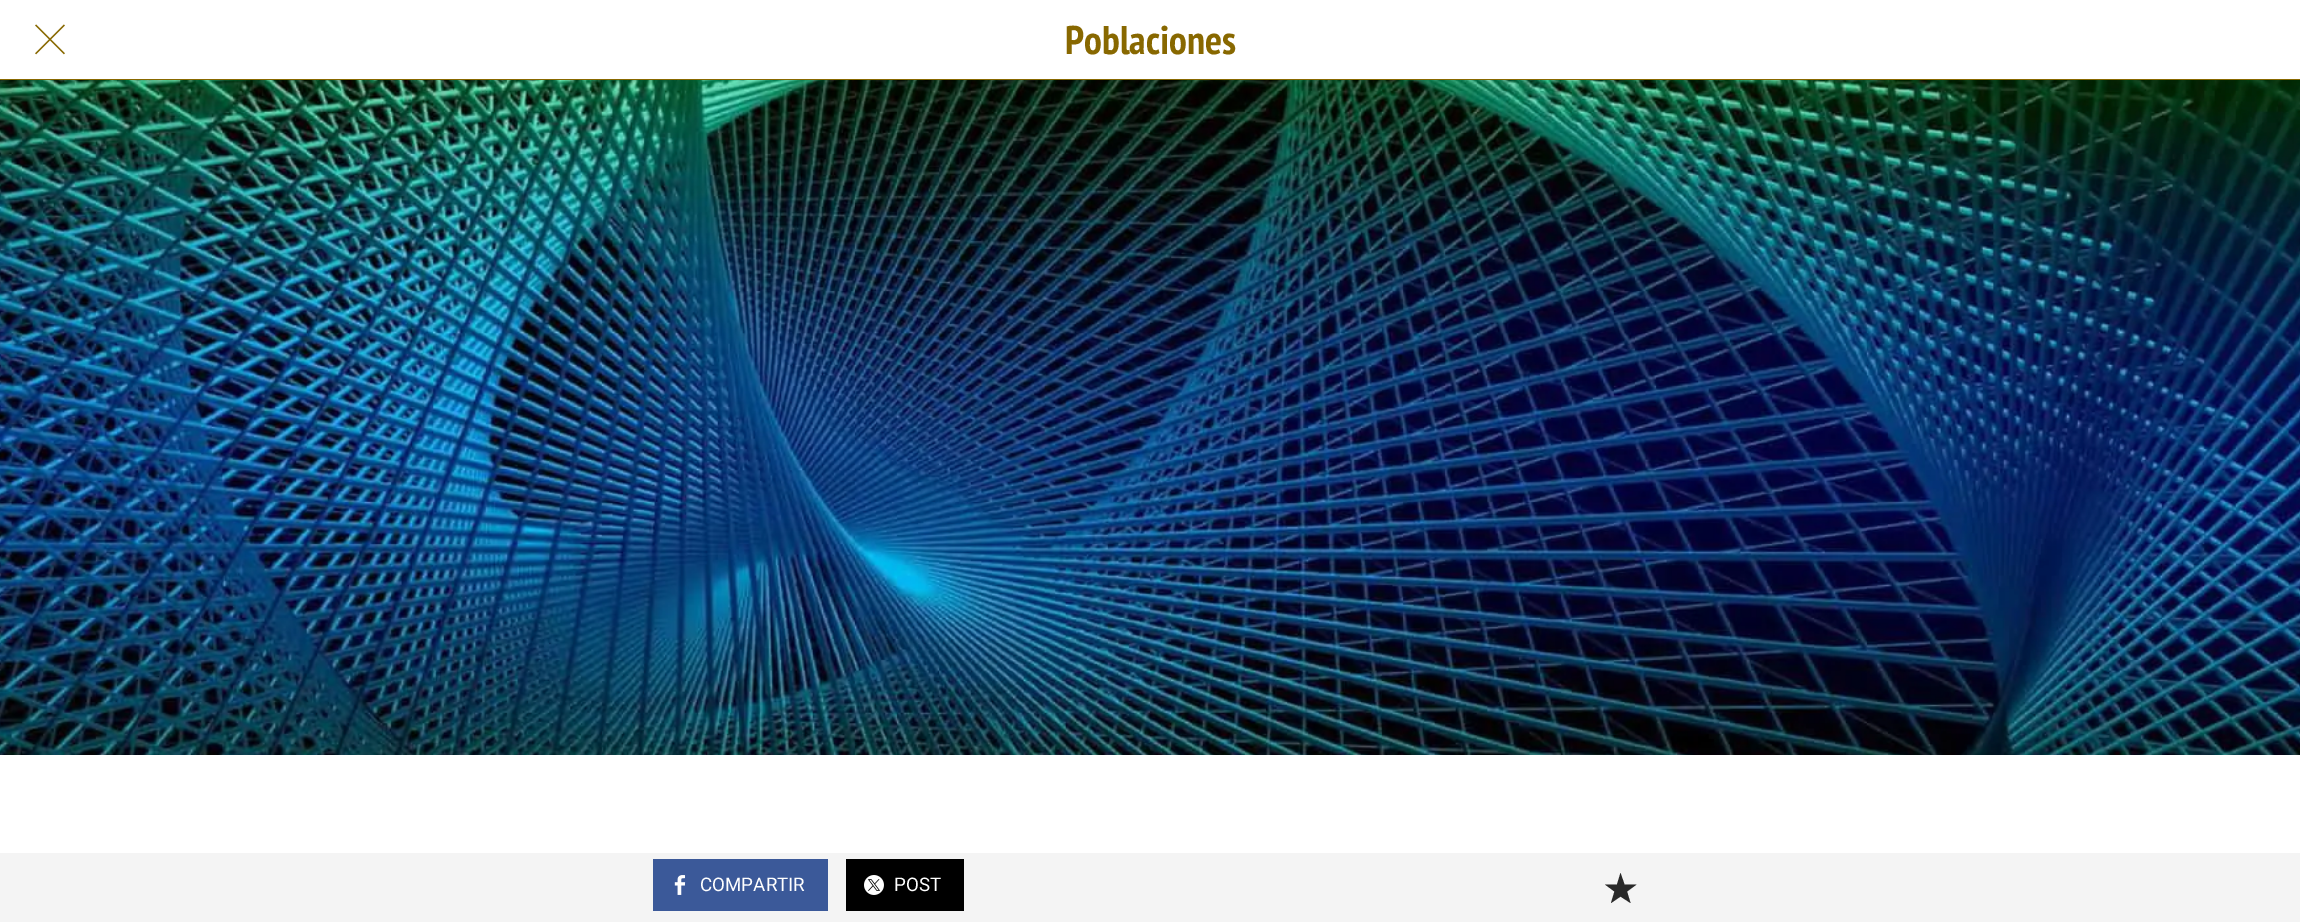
%!PS
<< /PageSize [2300 922] >> setpagedevice
/mt/moveto load def
/li/lineto load def
/cp/closepath load def
/fl/fill load def
/co { dup -16 bitshift 255 div exch dup -8 bitshift 255 and 255 div exch 255 and 255 div setrgbcolor } def
/fn { [ exch dup neg 0 0 3 -1 roll 0 0 ] selectfont } def
/tx { co fn moveto show } def
/bx { co rectfill } def
/im { 5 dict begin { /h /w /y /x /name } { exch def } forall
  gsave x y translate w h scale
  w h 8 [w 0 0 h 0 0] name (r) file false 3 colorimage grestore end } def
0 922 translate 1 -1 scale
4 setmiterlimit
0 0 2300 922 16#FFFFFF bx
0 79 2300 1 16#886800 bx
(media/1.raw) 35 24 30 31 im
(media/2.raw) 0 80 2300 675 im
0 853 2300 69 16#F4F4F4 bx
653 859 175 52 16#3B5999 bx
(media/3.raw) 674 875 12 20 im
846 859 118 52 16#000000 bx
(media/4.raw) 864 875 20 20 im
16#292929 co
1636.5 884.5 mt 1624.5 884.5 li 1620.5 873 li 1617 884.5 li 1605 884.5 li 1614.5 891.5 li 1611 903 li 1620.5 896.5 li 1630.5 903 li 1627 891.5 li cp fl
(Poblaciones) 1065 54 /PTSansNarrow-Bold 40 16#886800 tx
(COMPARTIR) 700 891 /Roboto-Regular 18.75 16#FFFFFF tx
(POST) 894 891 /Roboto-Regular 18.75 16#FFFFFF tx
showpage
